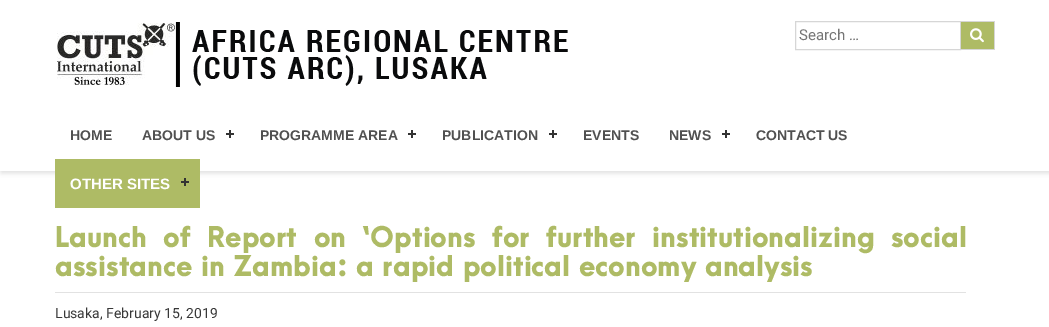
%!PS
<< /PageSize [1049 327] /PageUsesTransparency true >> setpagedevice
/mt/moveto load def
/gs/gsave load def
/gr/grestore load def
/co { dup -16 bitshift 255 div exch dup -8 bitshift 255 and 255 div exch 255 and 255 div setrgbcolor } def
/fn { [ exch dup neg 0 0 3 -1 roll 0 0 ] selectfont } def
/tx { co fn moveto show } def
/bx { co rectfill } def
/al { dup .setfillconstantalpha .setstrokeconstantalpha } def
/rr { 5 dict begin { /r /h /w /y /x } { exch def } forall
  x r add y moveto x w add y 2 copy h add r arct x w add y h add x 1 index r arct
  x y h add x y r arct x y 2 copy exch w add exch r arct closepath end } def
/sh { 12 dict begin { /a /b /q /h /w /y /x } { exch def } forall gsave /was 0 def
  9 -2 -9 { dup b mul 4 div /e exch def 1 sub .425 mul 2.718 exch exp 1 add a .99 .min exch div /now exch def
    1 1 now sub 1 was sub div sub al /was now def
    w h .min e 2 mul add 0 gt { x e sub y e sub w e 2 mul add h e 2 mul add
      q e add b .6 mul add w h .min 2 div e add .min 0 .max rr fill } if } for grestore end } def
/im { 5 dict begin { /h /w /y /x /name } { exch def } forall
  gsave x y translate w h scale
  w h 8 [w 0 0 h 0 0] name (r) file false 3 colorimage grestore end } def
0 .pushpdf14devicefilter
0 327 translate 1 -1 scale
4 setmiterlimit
0 0 1049 327 16#FFFFFF bx
gs
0 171 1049 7 rectclip
16#DEDEDE co
1 2 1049 171 0 2.5 1 sh
gr
(media/1.raw) 57 22 511 65 im
16#D6D6D6 co
795.5 21.5 165 28 rectstroke
961 22 33 27 16#AEBB65 bx
961 21 34 1 16#D6D6D6 bx
994 21 1 29 16#D6D6D6 bx
961 49 34 1 16#D6D6D6 bx
(media/2.raw) 970 28 14 15 im
229 130 2 8 16#333333 bx
226 133 8 2 16#333333 bx
411 130 2 8 16#333333 bx
408 133 8 2 16#333333 bx
552 130 2 8 16#333333 bx
549 133 8 2 16#333333 bx
725 130 2 8 16#333333 bx
722 133 8 2 16#333333 bx
55 159 145 49 16#AEBB65 bx
184 178 2 8 16#333333 bx
181 181 8 2 16#333333 bx
55 292 911 1 16#E2E2E2 bx
(Search …) 799 40 /Roboto-Regular 15 16#757575 tx
(HOME) 70 140 /LiberationSans-Bold 14 16#505050 tx
(ABOUT US) 142 140 /LiberationSans-Bold 14 16#505050 tx
(PROGRAMME AREA) 260 140 /LiberationSans-Bold 14 16#505050 tx
(PUBLICATION) 442 140 /LiberationSans-Bold 14 16#505050 tx
(EVENTS) 583 140 /LiberationSans-Bold 14 16#505050 tx
(NEWS) 669 140 /LiberationSans-Bold 14 16#505050 tx
(CONTACT US) 756 140 /LiberationSans-Bold 14 16#505050 tx
(OTHER SITES) 70 189 /LiberationSans-Bold 15 16#FFFFFF tx
/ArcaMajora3-Black 26 fn
16#AEBB65 co
55 247 mt 8 0 32 (Launch of Report on ‘Options for further institutionalizing social) widthshow
(assistance in Zambia: a rapid political economy analysis) 55 276 /ArcaMajora3-Black 26 16#AEBB65 tx
(Lusaka, February 15, 2019) 55 318 /Roboto-Regular 14 16#383838 tx
.poppdf14devicefilter showpage
